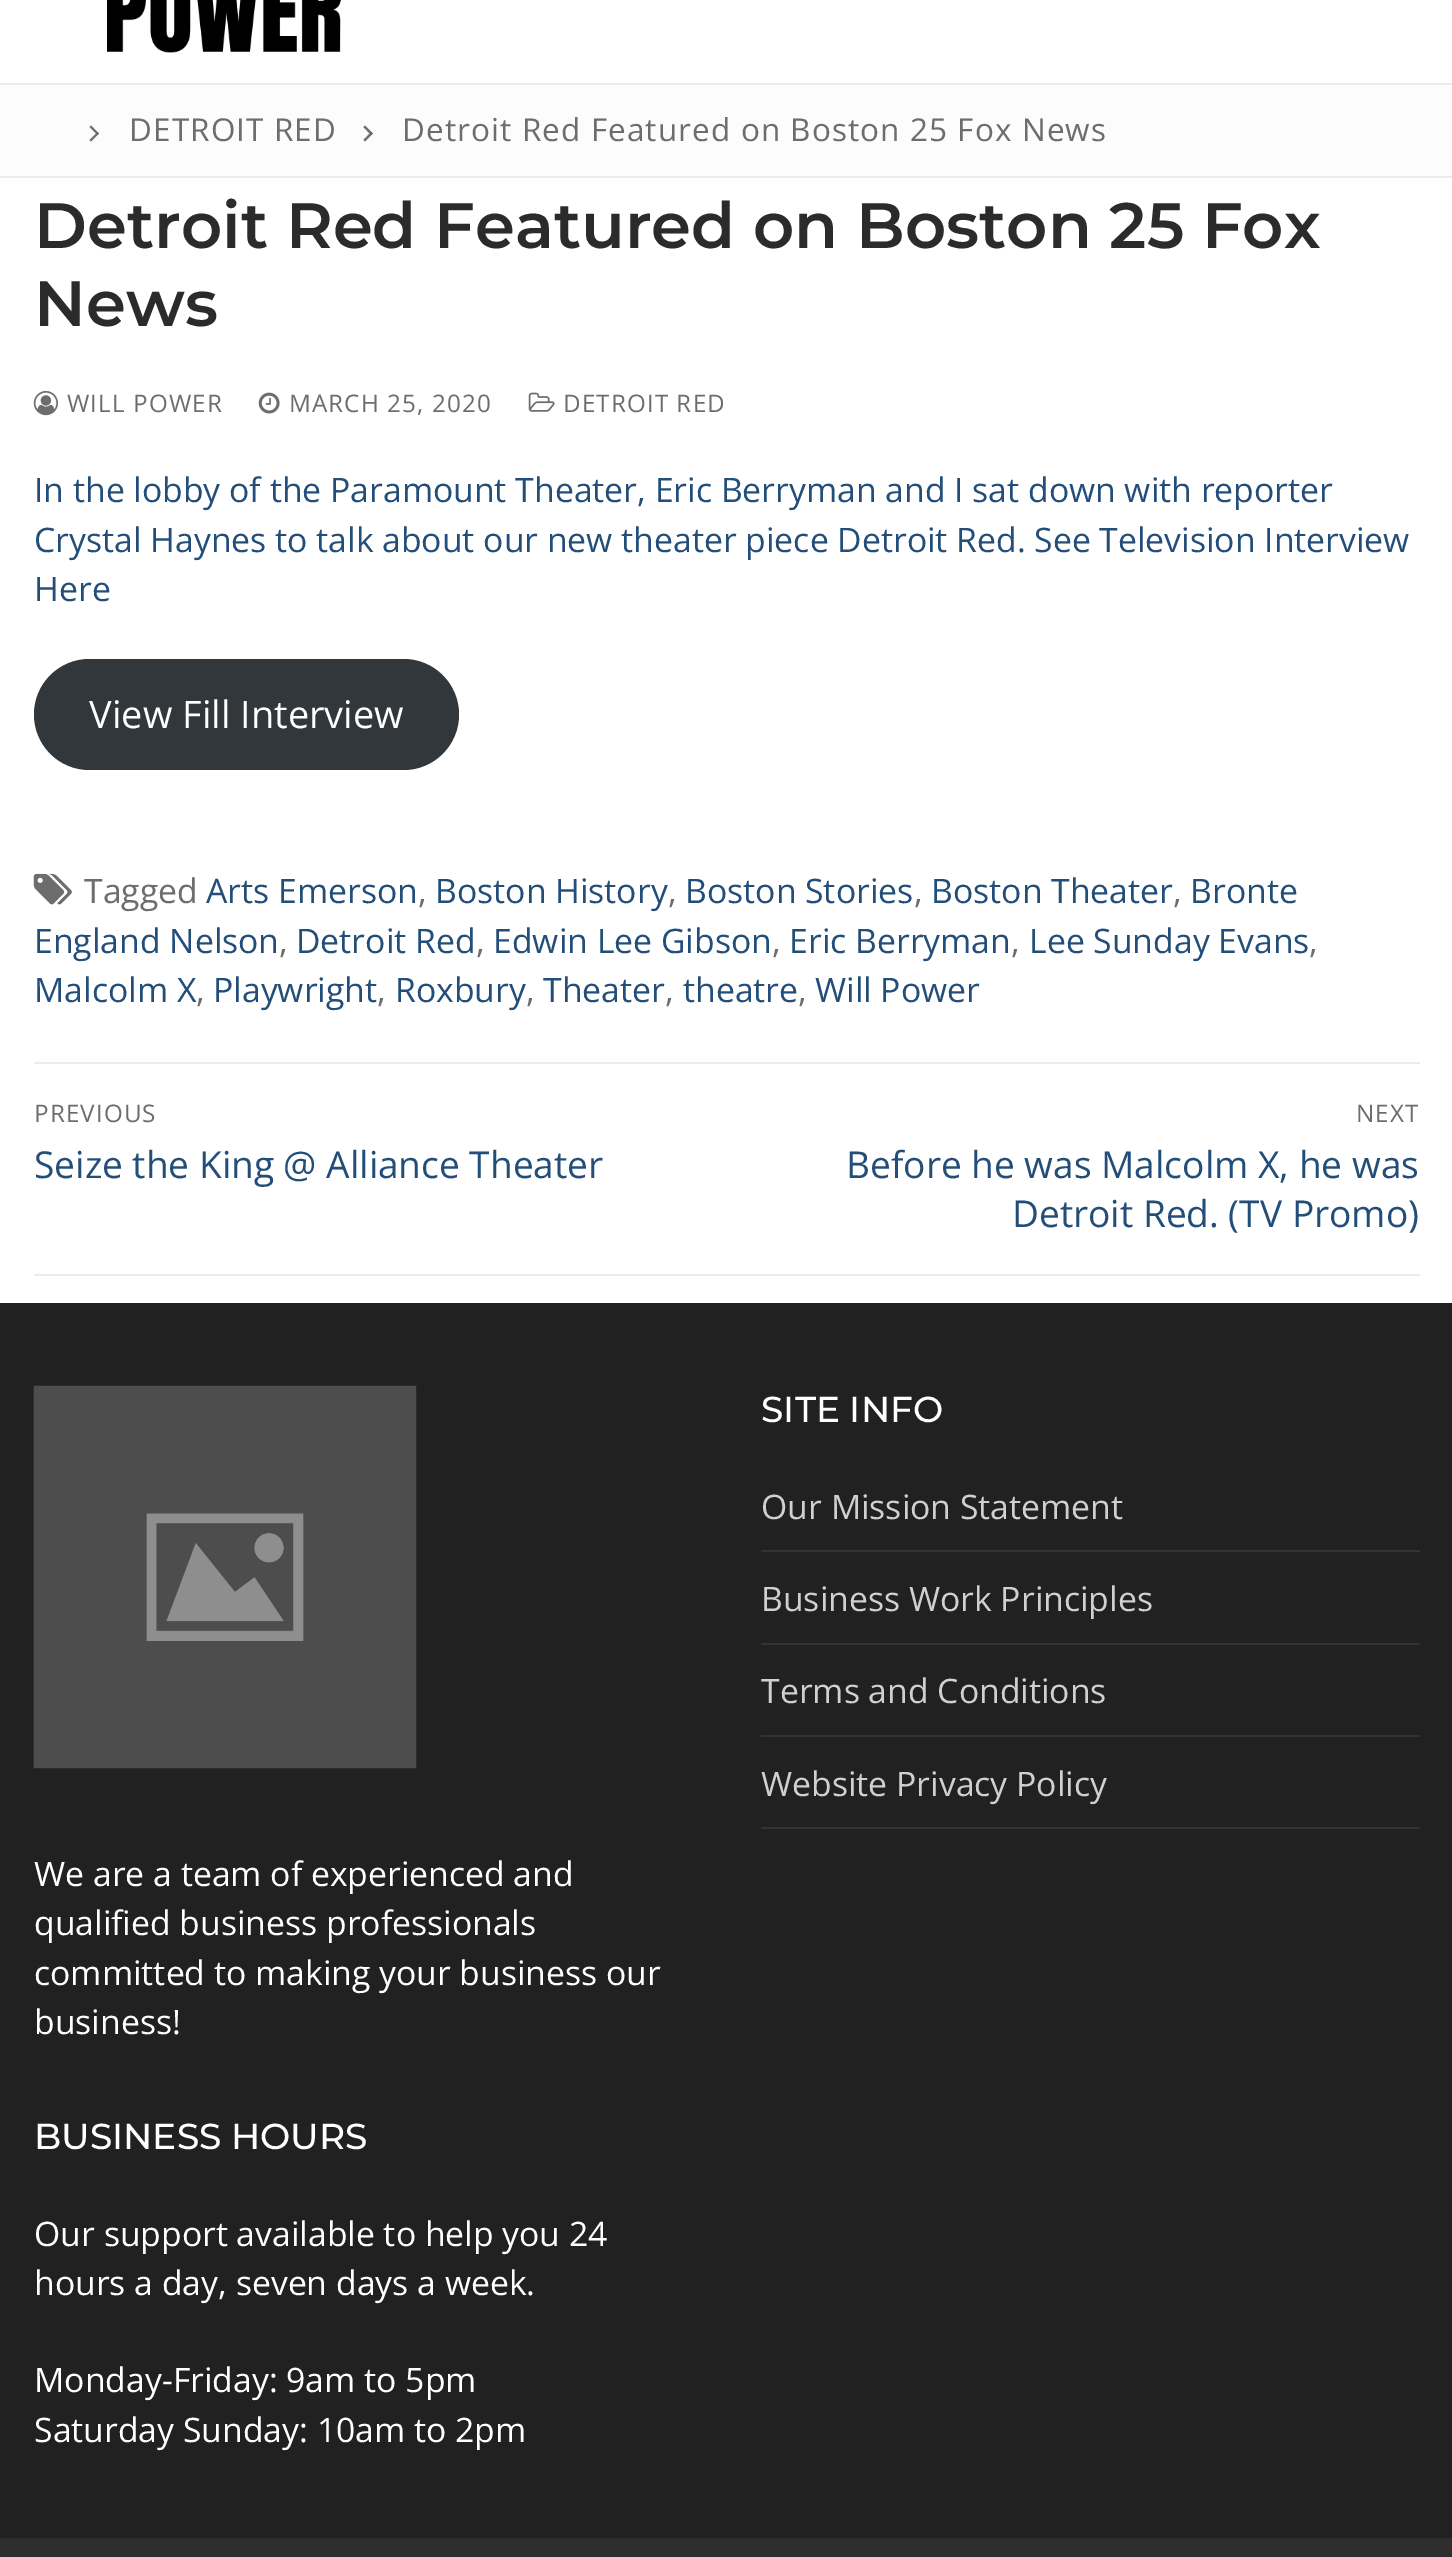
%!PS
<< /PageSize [1452 2557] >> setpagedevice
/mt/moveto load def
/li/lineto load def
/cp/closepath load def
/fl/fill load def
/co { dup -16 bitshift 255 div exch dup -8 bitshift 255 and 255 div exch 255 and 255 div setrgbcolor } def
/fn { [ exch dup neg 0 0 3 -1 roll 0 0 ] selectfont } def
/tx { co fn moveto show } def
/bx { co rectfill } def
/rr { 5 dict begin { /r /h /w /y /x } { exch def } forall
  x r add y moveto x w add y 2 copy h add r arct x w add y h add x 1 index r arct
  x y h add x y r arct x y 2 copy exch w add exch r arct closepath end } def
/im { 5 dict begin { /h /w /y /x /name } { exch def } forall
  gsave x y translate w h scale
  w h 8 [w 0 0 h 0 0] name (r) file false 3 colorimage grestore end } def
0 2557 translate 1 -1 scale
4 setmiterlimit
0 0 1452 2557 16#FFFFFF bx
0 83 1452 2 16#EAEAEA bx
(media/1.raw) 107 0 234 53 im
0 86 1452 90 16#FCFCFC bx
0 176 1452 2 16#EAECEE bx
16#6D6D6D co
99 133.5 mt 91 141.5 li 89.5 140 li 97.5 132 li cp fl
99 133.5 mt 97.5 135 li 89.5 127 li 91 125.5 li cp fl
373 133.5 mt 365 141.5 li 363.5 140 li 371 132 li cp fl
373 133.5 mt 371 135 li 363.5 127 li 365 125.5 li cp fl
(media/2.raw) 33 390 25 26 im
(media/3.raw) 258 392 22 22 im
(media/4.raw) 528 392 27 20 im
16#32373C co
34 659 425 111 55.5 rr fl
(media/5.raw) 33 873 39 32 im
34 1062 1386 2 16#EAECEE bx
34 1274 1386 2 16#EAECEE bx
0 1303 1452 1235 16#212121 bx
761 1550 659 2 16#333333 bx
761 1643 659 2 16#333333 bx
761 1735 659 2 16#333333 bx
761 1827 659 2 16#333333 bx
(media/6.raw) 33 1385 384 384 im
0 2538 1452 19 16#2E2E2E bx
/OpenSans-Regular 31.5 fn
16#6D6D6D co
129 141 mt 1.1 0 (DETROIT RED) ashow
402 141 mt 1.1 0 (Detroit Red Featured on Boston 25 Fox News) ashow
(Detroit Red Featured on Boston 25 Fox) 34 248 /Montserrat-SemiBold 64.1 16#2B2B2B tx
(News) 34 326 /Montserrat-SemiBold 64.1 16#2B2B2B tx
/OpenSans-Regular 24.25 fn
16#6D6D6D co
67 412 mt 1.1 0 (WILL POWER) ashow
289 412 mt 1.1 0 (MARCH 25, 2020) ashow
563 412 mt 1.1 0 (DETROIT RED) ashow
(In the lobby of the Paramount Theater, Eric Berryman and I sat down with reporter) 34 502 /OpenSans-Regular 33.75 16#234E7A tx
(Crystal Haynes to talk about our new theater piece Detroit Red. See Television Interview) 34 552 /OpenSans-Regular 33.75 16#234E7A tx
(Here) 34 601 /OpenSans-Regular 33.75 16#234E7A tx
(View Fill Interview) 89 728 /OpenSans-Regular 38 16#FFFFFF tx
(Tagged) 84 903 /OpenSans-Regular 33.75 16#6D6D6D tx
(Arts Emerson) 206 903 /OpenSans-Regular 33.75 16#234E7A tx
(,) 418 903 /OpenSans-Regular 33.75 16#6D6D6D tx
(Boston History) 435 903 /OpenSans-Regular 33.75 16#234E7A tx
(,) 668 903 /OpenSans-Regular 33.75 16#6D6D6D tx
(Boston Stories) 685 903 /OpenSans-Regular 33.75 16#234E7A tx
(,) 914 903 /OpenSans-Regular 33.75 16#6D6D6D tx
(Boston Theater) 931 903 /OpenSans-Regular 33.75 16#234E7A tx
(,) 1173 903 /OpenSans-Regular 33.75 16#6D6D6D tx
(Bronte) 1190 903 /OpenSans-Regular 33.75 16#234E7A tx
(England Nelson) 34 953 /OpenSans-Regular 33.75 16#234E7A tx
(,) 279 953 /OpenSans-Regular 33.75 16#6D6D6D tx
(Detroit Red) 296 953 /OpenSans-Regular 33.75 16#234E7A tx
(,) 476 953 /OpenSans-Regular 33.75 16#6D6D6D tx
(Edwin Lee Gibson) 493 953 /OpenSans-Regular 33.75 16#234E7A tx
(,) 772 953 /OpenSans-Regular 33.75 16#6D6D6D tx
(Eric Berryman) 789 953 /OpenSans-Regular 33.75 16#234E7A tx
(,) 1011 953 /OpenSans-Regular 33.75 16#6D6D6D tx
(Lee Sunday Evans) 1029 953 /OpenSans-Regular 33.75 16#234E7A tx
(,) 1309 953 /OpenSans-Regular 33.75 16#6D6D6D tx
(Malcolm X) 34 1002 /OpenSans-Regular 33.75 16#234E7A tx
(,) 196 1002 /OpenSans-Regular 33.75 16#6D6D6D tx
(Playwright) 213 1002 /OpenSans-Regular 33.75 16#234E7A tx
(,) 377 1002 /OpenSans-Regular 33.75 16#6D6D6D tx
(Roxbury) 395 1002 /OpenSans-Regular 33.75 16#234E7A tx
(,) 526 1002 /OpenSans-Regular 33.75 16#6D6D6D tx
(Theater) 543 1002 /OpenSans-Regular 33.75 16#234E7A tx
(,) 665 1002 /OpenSans-Regular 33.75 16#6D6D6D tx
(theatre) 683 1002 /OpenSans-Regular 33.75 16#234E7A tx
(,) 798 1002 /OpenSans-Regular 33.75 16#6D6D6D tx
(Will Power) 815 1002 /OpenSans-Regular 33.75 16#234E7A tx
/OpenSans-Regular 24.25 fn
16#6D6D6D co
34 1122 mt 1.1 0 (PREVIOUS) ashow
(Seize the King @ Alliance Theater) 34 1178 /OpenSans-Regular 37.1 16#234E7A tx
/OpenSans-Regular 24.25 fn
16#6D6D6D co
1356 1122 mt 1.1 0 (NEXT) ashow
(Before he was Malcolm X, he was) 846 1178 /OpenSans-Regular 37.1 16#234E7A tx
(Detroit Red. \(TV Promo\)) 1012 1227 /OpenSans-Regular 37.1 16#234E7A tx
(SITE INFO) 761 1422 /Montserrat-Medium 36 16#FFFFFF tx
(Our Mission Statement) 761 1519 /OpenSans-Regular 33.75 16#D0D0D0 tx
(Business Work Principles) 761 1611 /OpenSans-Regular 33.75 16#D0D0D0 tx
(Terms and Conditions) 761 1703 /OpenSans-Regular 33.75 16#D0D0D0 tx
(Website Privacy Policy) 761 1796 /OpenSans-Regular 33.75 16#D0D0D0 tx
(We are a team of experienced and) 34 1886 /OpenSans-Regular 33.75 16#FFFFFF tx
(qualified business professionals) 34 1935 /OpenSans-Regular 33.75 16#FFFFFF tx
(committed to making your business our) 34 1985 /OpenSans-Regular 33.75 16#FFFFFF tx
(business!) 34 2034 /OpenSans-Regular 33.75 16#FFFFFF tx
(BUSINESS HOURS) 34 2149 /Montserrat-Medium 36 16#FFFFFF tx
(Our support available to help you 24) 34 2246 /OpenSans-Regular 33.75 16#FFFFFF tx
(hours a day, seven days a week.) 34 2295 /OpenSans-Regular 33.75 16#FFFFFF tx
(Monday-Friday: 9am to 5pm) 34 2392 /OpenSans-Regular 33.75 16#FFFFFF tx
(Saturday Sunday: 10am to 2pm) 34 2442 /OpenSans-Regular 33.75 16#FFFFFF tx
showpage
